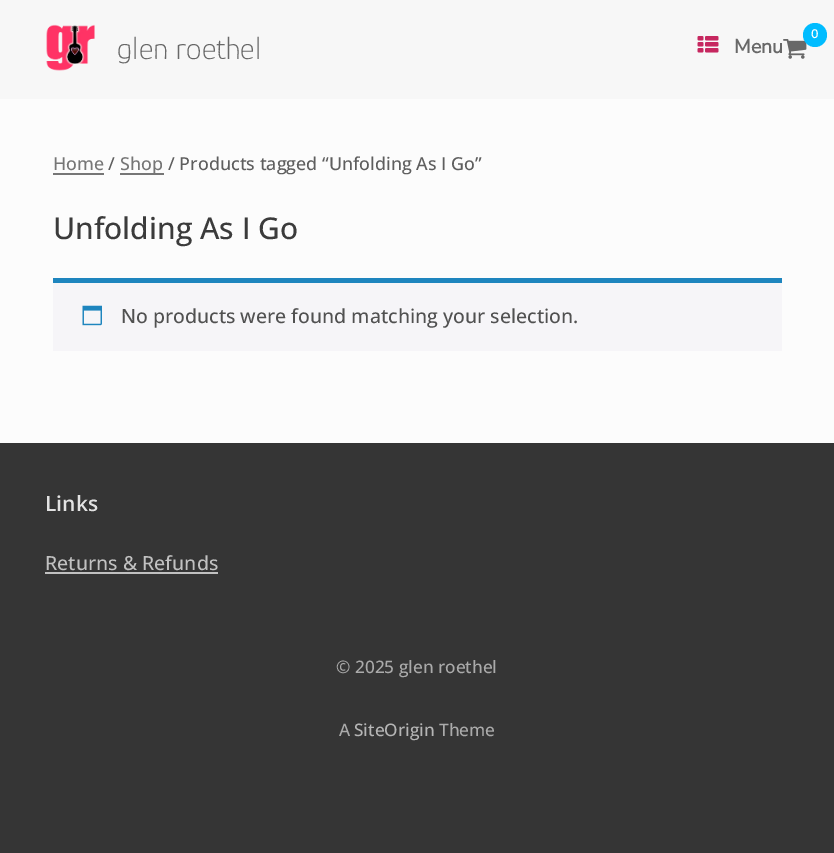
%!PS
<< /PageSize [834 853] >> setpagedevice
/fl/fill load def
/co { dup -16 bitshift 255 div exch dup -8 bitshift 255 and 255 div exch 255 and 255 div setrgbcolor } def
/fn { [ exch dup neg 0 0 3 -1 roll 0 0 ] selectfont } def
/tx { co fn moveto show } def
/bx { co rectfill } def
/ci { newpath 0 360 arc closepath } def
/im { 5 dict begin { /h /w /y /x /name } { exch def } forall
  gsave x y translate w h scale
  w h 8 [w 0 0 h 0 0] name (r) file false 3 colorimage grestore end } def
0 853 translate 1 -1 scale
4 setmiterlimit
0 0 834 853 16#353535 bx
0 0 834 99 16#F7F7F7 bx
(media/1.raw) 46 24 49 47 im
(media/2.raw) 783 39 24 20 im
16#00BCFF co
815 35 12 ci fl
(media/3.raw) 697 36 22 17 im
0 99 834 344 16#FCFCFC bx
53 173 51 2 16#767676 bx
120 173 44 2 16#767676 bx
53 283 729 68 16#F6F5F8 bx
53 278 729 5 16#1E85BE bx
(media/4.raw) 82 305 20 21 im
45 572 173 2 16#C1C1C1 bx
(glen roethel) 117 59 /Glory-Thin 31.5 16#686868 tx
(0) 811 38 /NunitoSans-Bold 12 16#FFFFFF tx
(Menu) 734 53 /NunitoSans-Bold 19.5 16#686868 tx
(Home) 53 170 /OpenSans-Medium 17.9 16#767676 tx
(/) 108 170 /OpenSans-Medium 17.9 16#5E5E5E tx
(Shop) 120 170 /OpenSans-Medium 17.9 16#767676 tx
(/ Products tagged “Unfolding As I Go”) 168 170 /OpenSans-Medium 17.9 16#5E5E5E tx
(Unfolding As I Go) 53 239 /OpenSans-Medium 30 16#3B3B3B tx
(No products were found matching your selection.) 121 323 /OpenSans-Medium 19.5 16#515151 tx
(Links) 45 511 /OpenSans-SemiBold 21 16#E2E2E2 tx
(Returns & Refunds) 45 570 /OpenSans-Medium 19.5 16#C1C1C1 tx
(© 2025 glen roethel) 336 673 /OpenSans-Medium 17.25 16#AAAAAA tx
(A) 339 736 /OpenSans-Medium 17.25 16#AAAAAA tx
(SiteOrigin) 354 736 /OpenSans-Medium 17.25 16#B5B5B5 tx
(Theme) 439 736 /OpenSans-Medium 17.25 16#AAAAAA tx
showpage
